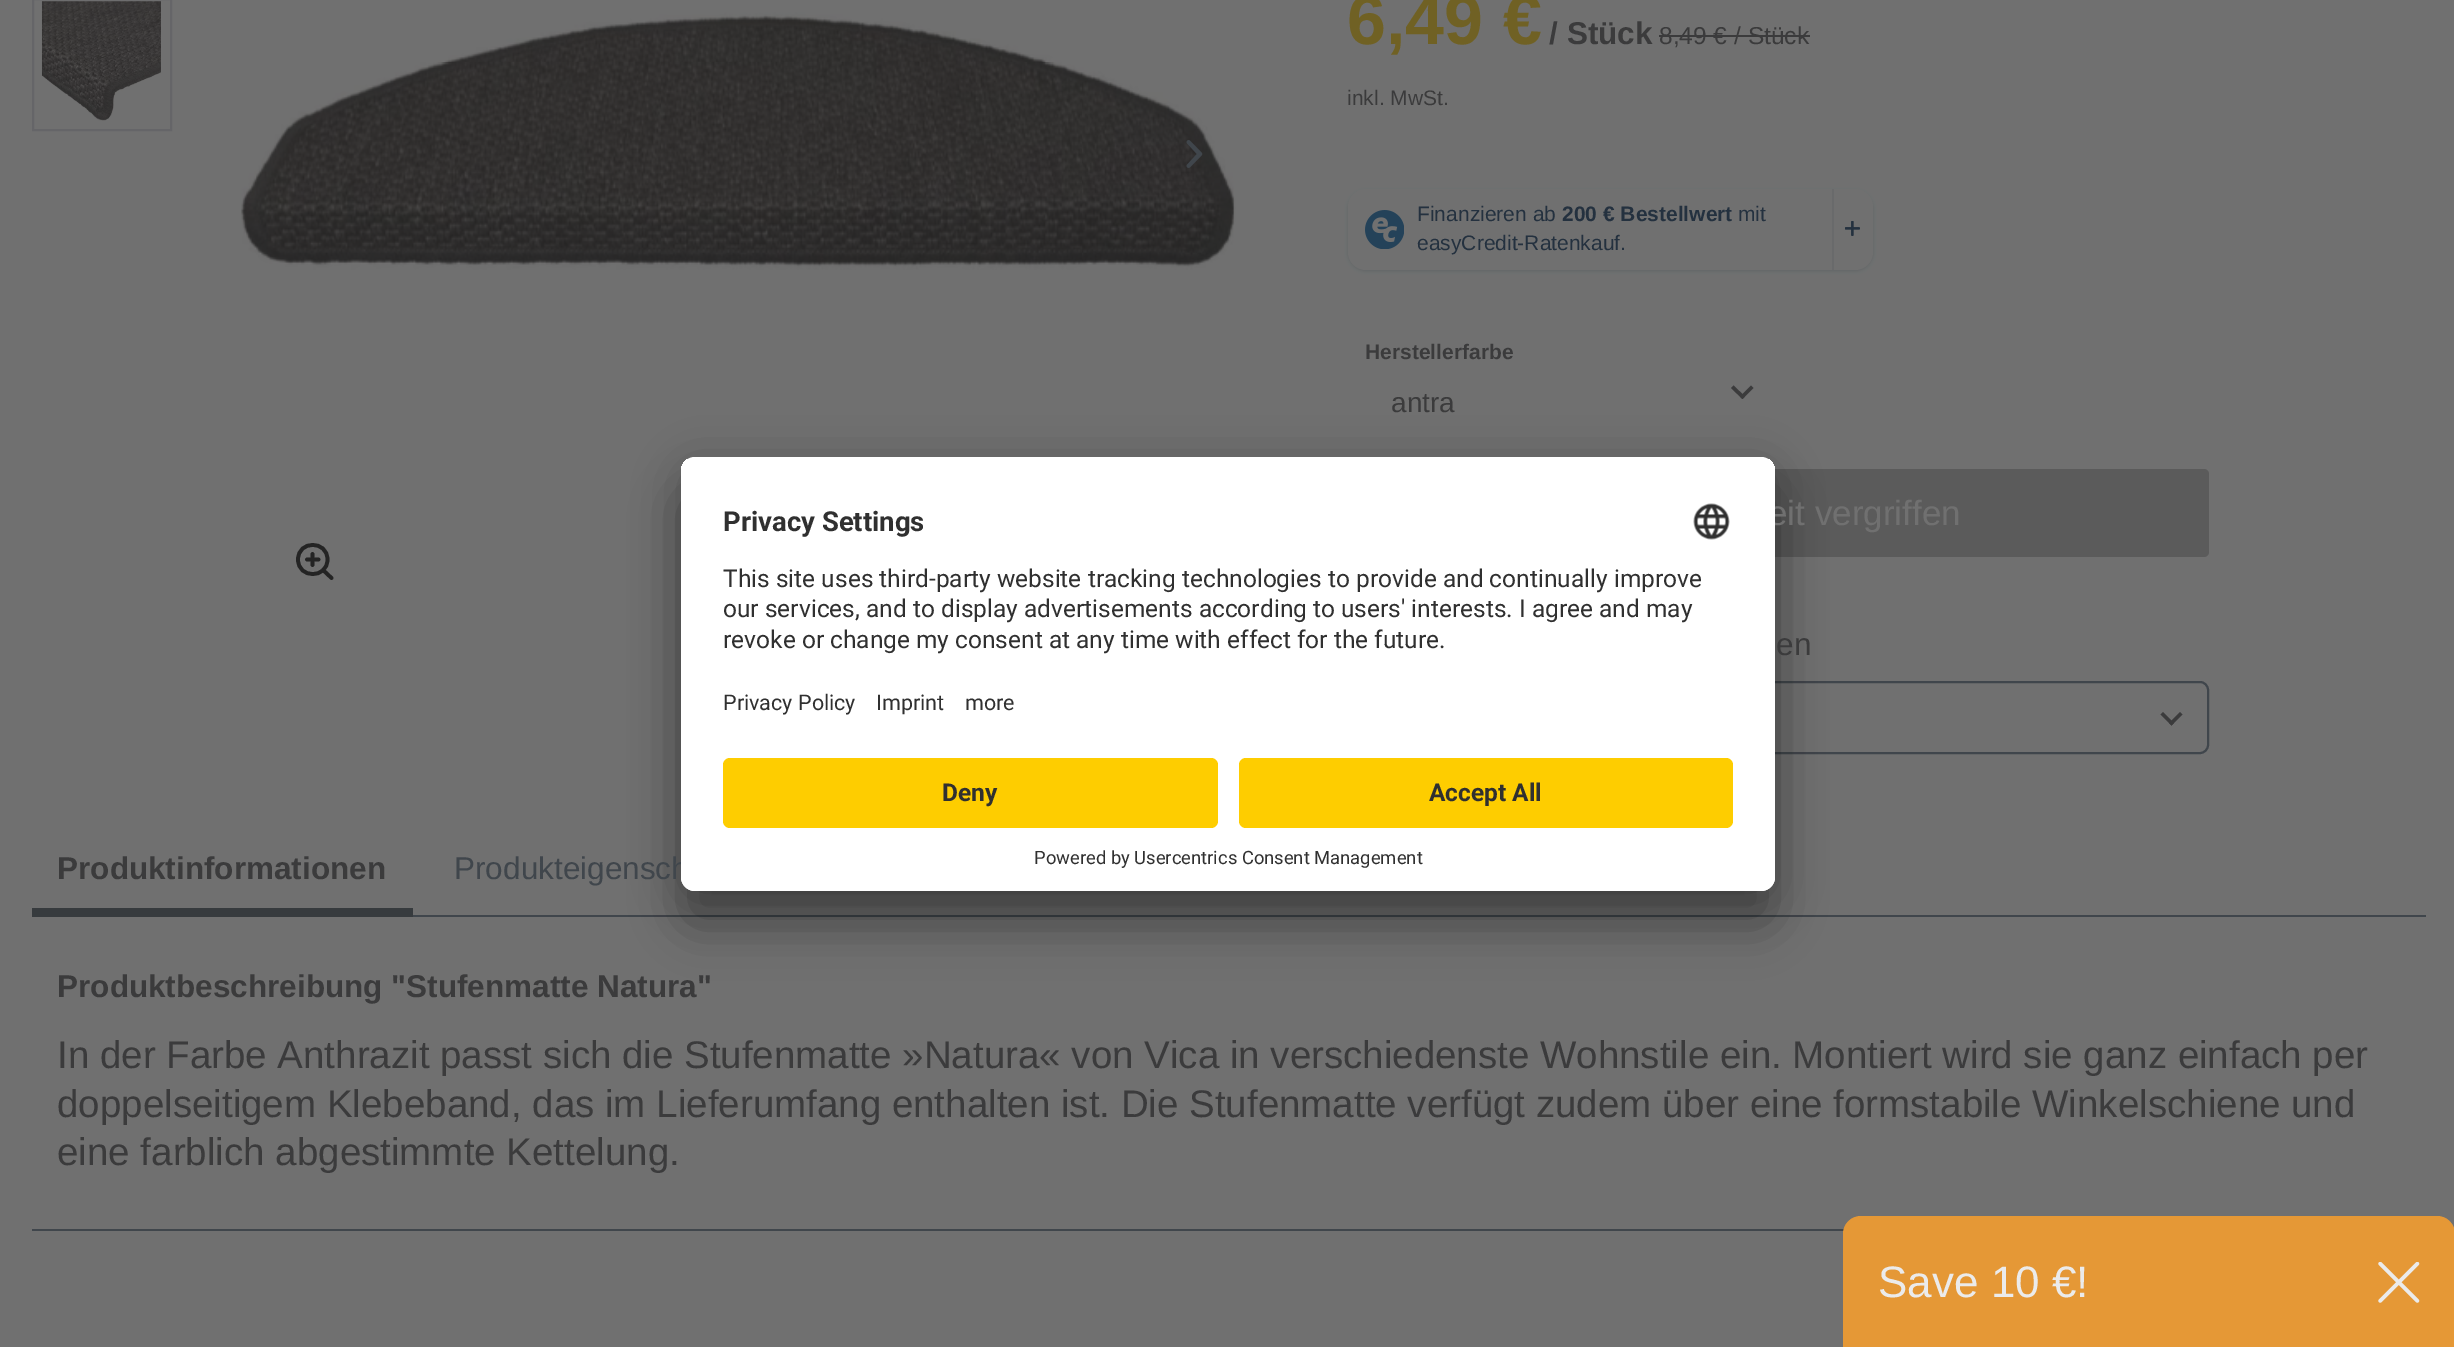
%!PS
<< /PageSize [2454 1347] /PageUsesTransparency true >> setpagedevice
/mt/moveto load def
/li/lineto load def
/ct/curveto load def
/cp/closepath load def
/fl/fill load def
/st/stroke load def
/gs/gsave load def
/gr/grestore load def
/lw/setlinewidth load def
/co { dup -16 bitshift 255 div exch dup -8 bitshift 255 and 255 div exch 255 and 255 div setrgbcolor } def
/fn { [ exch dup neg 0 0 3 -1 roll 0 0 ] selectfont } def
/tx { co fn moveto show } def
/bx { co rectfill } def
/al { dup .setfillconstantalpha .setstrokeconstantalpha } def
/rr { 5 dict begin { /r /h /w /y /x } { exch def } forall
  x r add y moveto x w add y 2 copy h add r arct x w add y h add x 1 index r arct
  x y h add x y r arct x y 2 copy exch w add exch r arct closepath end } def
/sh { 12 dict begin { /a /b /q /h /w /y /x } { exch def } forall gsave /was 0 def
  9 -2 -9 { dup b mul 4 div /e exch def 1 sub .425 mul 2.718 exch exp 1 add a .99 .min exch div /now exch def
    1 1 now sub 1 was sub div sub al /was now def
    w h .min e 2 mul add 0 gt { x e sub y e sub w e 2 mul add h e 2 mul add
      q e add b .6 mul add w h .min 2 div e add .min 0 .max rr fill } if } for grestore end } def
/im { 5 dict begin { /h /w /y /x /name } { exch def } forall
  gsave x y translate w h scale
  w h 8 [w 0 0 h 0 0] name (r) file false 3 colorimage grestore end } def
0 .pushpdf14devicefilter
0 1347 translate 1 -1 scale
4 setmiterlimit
0 0 2454 1347 16#707070 bx
16#656568 co
2 lw
33 -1 138 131 rectstroke
(media/1.raw) 41 1 120 120 im
(media/2.raw) 241 12 995 258 im
16#242424 co
3.7 lw
1 setlinecap
1 setlinejoin
331.5 578 mt 323 570 li 312.5 554 mt 312.5 565 li 307 559.5 mt 318.5 559.5 li 327.5 559.5 mt 327.5 579 298 579 298 559.5 ct 298 540 327.5 540 327.5 559.5 ct cp st
(media/3.raw) 1186 140 17 28 im
1659 35 151 2 16#3B3B3C bx
16#24313F co
1348 191 525 80 18 2 .2 sh
16#707070 co
1348 189 525 81 18 rr fl
(media/4.raw) 1365 210 39 39 im
1832 189 2 81 16#696A6B bx
(media/5.raw) 1845 221 15 15 im
16#3B3B3C co
1751 385.5 mt 1753.5 388 li 1742.5 399 li 1740 396.5 li cp fl
1733.5 385.5 mt 1745 396.5 li 1742.5 399 li 1731 388 li cp fl
16#5B5B5B co
1348 469 861 88 5 rr fl
16#40464C co
2 lw
0 setlinecap
0 setlinejoin
1349 682 859 71 8 rr st
16#3B3B3C co
2180 712 mt 2182.5 714.5 li 2171.5 725.5 li 2169 723 li cp fl
2163 712 mt 2174 723 li 2171.5 725.5 li 2160.5 714.5 li cp fl
32 908 381 9 16#373B3E bx
413 915 2013 2 16#40464C bx
32 1229 1812 2 16#40464C bx
16#000000 co
681 492 1094 434 14 24.5 .3 sh
681 466 1094 434 14 23 .22 sh
16#E59836 co
1861 1216 mt 2437 1216 li 2447 1216 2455 1224 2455 1234 ct 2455 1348 li 1843 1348 li 1843 1234 li 1843 1224 1851 1216 1861 1216 ct cp fl
(media/7.raw) 2378 1262 42 41 im
(6,49 €) 1347 44 /LiberationSans-Bold 70 16#706124 tx
(/ Stück) 1549 44 /LiberationSans-Bold 31.5 16#3B3B3C tx
(8,49 € / Stück) 1659 44 /LiberationSans-Regular 24.5 16#3B3B3C tx
(inkl. MwSt.) 1347 105 /LiberationSans-Regular 21 16#3B3B3C tx
(Finanzieren ab) 1417 221 /LiberationSans-Regular 21 16#24313F tx
(200 € Bestellwert) 1562 221 /LiberationSans-Bold 21 16#24313F tx
(mit) 1738 221 /LiberationSans-Regular 21 16#24313F tx
(easyCredit-Ratenkauf.) 1417 250 /LiberationSans-Regular 21 16#24313F tx
(Herstellerfarbe) 1365 359 /LiberationSans-Bold 21 16#3B3B3C tx
(antra) 1391 412 /LiberationSans-Regular 28 16#3B3B3C tx
(eit vergriffen) 1768 525 /LiberationSans-Regular 35 16#707070 tx
(en) 1776 655 /LiberationSans-Regular 31.5 16#3B3B3C tx
(Produktinformationen) 57 879 /LiberationSans-Bold 31.5 16#3B3B3C tx
(Produkteigensch) 454 879 /LiberationSans-Regular 31.5 16#40464C tx
(Produktbeschreibung "Stufenmatte Natura") 57 997 /LiberationSans-Bold 31.5 16#3B3B3C tx
(In der Farbe Anthrazit passt sich die Stufenmatte »Natura« von Vica in verschiedenste Wohnstile ein. Montiert wird sie ganz einfach per) 57 1068 /LiberationSans-Regular 38.5 16#3B3B3C tx
(doppelseitigem Klebeband, das im Lieferumfang enthalten ist. Die Stufenmatte verfügt zudem über eine formstabile Winkelschiene und) 57 1117 /LiberationSans-Regular 38.5 16#3B3B3C tx
(eine farblich abgestimmte Kettelung.) 57 1165 /LiberationSans-Regular 38.5 16#3B3B3C tx
16#FFFFFF co
681 457 1094 434 14 rr fl
gs
681 457 1094 434 14 rr clip newpath
695 457 mt 1761 457 li 1768.5 457 1775 463.5 1775 471 ct 1775 744 li 681 744 li 681 471 li 681 463.5 687.5 457 695 457 ct cp clip newpath
681 459 1094 285 16#FFFFFF bx
gr
(Privacy Settings) 723 531 /Roboto-Bold 27.5 16#303030 tx
(media/6.raw) 1693 503 37 37 im
(This site uses third-party website tracking technologies to provide and continually improve) 723 587 /Roboto-Regular 24.5 16#303030 tx
(our services, and to display advertisements according to users' interests. I agree and may) 723 617 /Roboto-Regular 24.5 16#303030 tx
(revoke or change my consent at any time with effect for the future.) 723 648 /Roboto-Regular 24.5 16#303030 tx
(Privacy Policy) 723 710 /Roboto-Regular 21.5 16#303030 tx
(Imprint) 876 710 /Roboto-Regular 21.5 16#303030 tx
(more) 965 710 /Roboto-Regular 21.5 16#303030 tx
16#FFFFFF co
681 744 mt 1775 744 li 1775 877 li 1775 884.5 1768.5 891 1761 891 ct 695 891 li 687.5 891 681 884.5 681 877 ct cp fl
16#FECD00 co
723 758 495 70 7 rr fl
(Deny) 942 801 /Roboto-Bold 24.5 16#303030 tx
16#FECD00 co
1239 758 494 70 7 rr fl
(Accept All) 1429 801 /Roboto-Bold 24.5 16#303030 tx
(Powered by Usercentrics Consent Management) 1034 864 /Roboto-Regular 18.4 16#303030 tx
(Save 10 €!) 1878 1297 /LiberationSans-Regular 44 16#EBEBEB tx
.poppdf14devicefilter showpage
